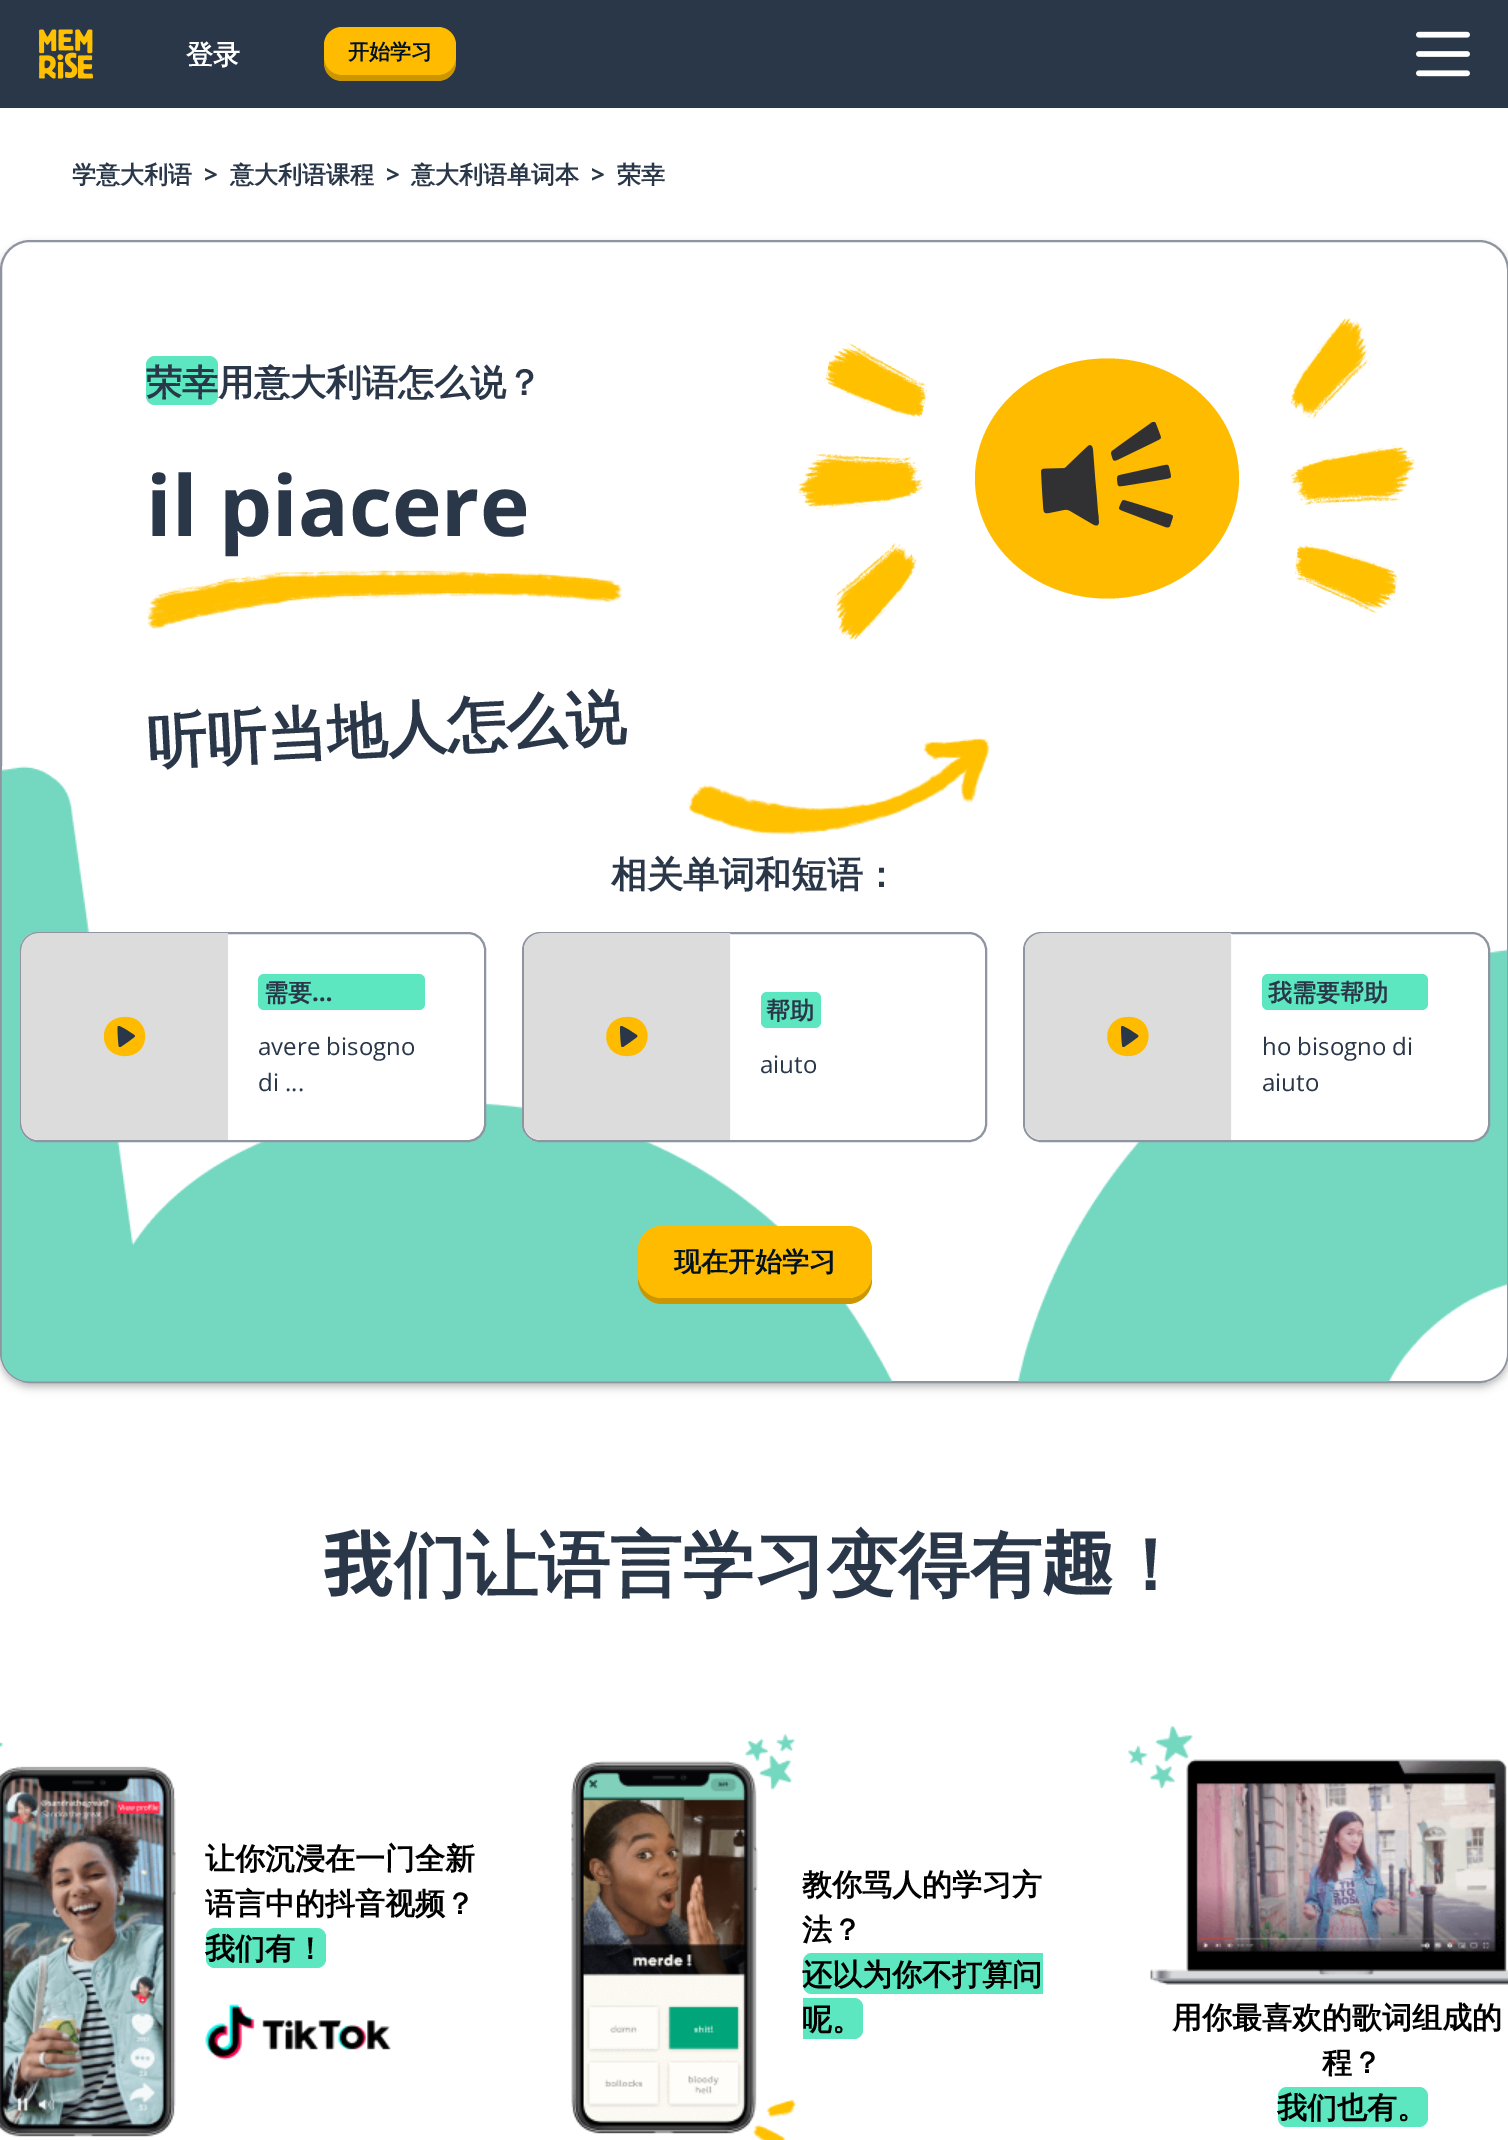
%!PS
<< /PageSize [1508 2140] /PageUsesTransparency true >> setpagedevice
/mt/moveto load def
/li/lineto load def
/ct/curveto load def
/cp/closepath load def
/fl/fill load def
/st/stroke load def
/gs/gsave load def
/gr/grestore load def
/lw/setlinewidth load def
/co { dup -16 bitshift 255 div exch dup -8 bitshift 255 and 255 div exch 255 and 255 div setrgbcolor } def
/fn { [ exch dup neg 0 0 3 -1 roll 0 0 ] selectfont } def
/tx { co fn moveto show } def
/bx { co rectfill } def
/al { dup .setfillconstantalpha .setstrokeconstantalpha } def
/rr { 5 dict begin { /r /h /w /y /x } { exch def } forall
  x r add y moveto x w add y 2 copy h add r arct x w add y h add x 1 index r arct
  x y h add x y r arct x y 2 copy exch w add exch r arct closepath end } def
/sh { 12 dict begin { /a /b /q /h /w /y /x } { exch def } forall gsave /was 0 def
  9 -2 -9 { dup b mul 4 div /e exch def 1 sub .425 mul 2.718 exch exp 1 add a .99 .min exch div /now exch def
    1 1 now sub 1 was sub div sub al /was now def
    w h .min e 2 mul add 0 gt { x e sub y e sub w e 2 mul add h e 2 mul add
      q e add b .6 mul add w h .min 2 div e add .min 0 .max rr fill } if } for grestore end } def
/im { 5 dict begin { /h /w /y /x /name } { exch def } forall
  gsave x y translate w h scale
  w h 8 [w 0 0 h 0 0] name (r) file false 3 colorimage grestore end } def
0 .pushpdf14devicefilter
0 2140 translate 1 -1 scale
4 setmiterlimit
0 0 1508 2140 16#FFFFFF bx
0 0 1508 108 16#293749 bx
(media/1.raw) 39 29 54 50 im
16#CC9600 co
324 57 mt 324 63 li 324 73 332 81 342 81 ct 438 81 li 448 81 456 73 456 63 ct 456 57 li 456 67 448 75 438 75 ct 342 75 li 332 75 324 67 324 57 ct cp fl
16#FFBB00 co
324 27 132 48 18 rr fl
(media/2.raw) 1416 31 54 46 im
16#000000 co
0 243 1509 1143 30 3 .12 sh
0 245 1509 1143 30 4.5 .15 sh
16#FFFFFF co
1 241 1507 1141 29 rr gs fl gr
16#8E94A0 co
2 lw
st
(media/3.raw) 1 766 1507 616 im
16#5DE7C0 co
146 356 72 49 9 rr fl
(media/4.raw) 146 570 478 59 im
(media/5.raw) 798 343 129 300 im
16#FFBB00 co
1107 358.5 mt 1180 358.5 1239 412 1239 478.5 ct 1239 545 1180 598.5 1107 598.5 ct 1034 598.5 975 545 975 478.5 ct 975 412 1034 358.5 1107 358.5 ct cp fl
(media/6.raw) 1041 422 132 106 im
(media/7.raw) 1290 315 126 299 im
(media/8.raw) 688 738 302 97 im
16#FFFFFF co
21 933 464 208 17 rr gs fl gr
16#8E94A0 co
st
(media/9.raw) 21 933 207 207 im
gs
104 1016 42 42 rectclip
16#FFBB00 co
125 1017 mt 152 1016 152 1057 124 1056 ct 97 1055 97 1017 125 1017 ct cp fl
gr
(media/10.raw) 117 1026 18 21 im
16#5DE7C0 co
258 974 167 36 6 rr fl
16#FFFFFF co
523 933 463 208 17 rr gs fl gr
16#8E94A0 co
st
(media/11.raw) 524 933 207 207 im
16#FFBB00 co
627 1017 mt 655 1016 654 1057 626 1056 ct 599 1055 600 1017 627 1017 ct cp fl
(media/12.raw) 620 1026 18 21 im
16#5DE7C0 co
761 992 60 36 6 rr fl
16#FFFFFF co
1024 933 465 208 17 rr gs fl gr
16#8E94A0 co
st
(media/13.raw) 1025 933 207 207 im
16#FFBB00 co
1128 1017 mt 1156 1016 1155 1057 1127 1056 ct 1100 1055 1101 1017 1128 1017 ct cp fl
(media/12.raw) 1121 1026 18 21 im
16#5DE7C0 co
1262 974 166 36 6 rr fl
16#CC9600 co
638 1278 mt 638 1280 li 638 1293 649 1304 662 1304 ct 848 1304 li 861 1304 872 1293 872 1280 ct 872 1256 li 872 1251 li 872 1274 li 872 1287 861 1298 848 1298 ct 662 1298 li 650 1298 640 1289 638 1278 ct cp fl
16#FFBB00 co
638 1226 234 72 24 rr fl
(media/14.raw) 0 1742 176 395 im
16#5DE7C0 co
206 1928 120 40 9 rr fl
(media/15.raw) 205 2004 186 56 im
(media/16.raw) 571 1733 226 407 im
812 1953 mt 1043 1953 li 1043 1994 li 812 1994 li 807 1994 803 1990 803 1985 ct 803 1962 li 803 1957 807 1953 812 1953 ct cp fl
803 1998 mt 854 1998 li 859 1998 863 2002 863 2007 ct 863 2030 li 863 2035 859 2039 854 2039 ct 803 2039 li cp fl
(media/17.raw) 1127 1726 381 259 im
1278 2087 150 40 9 rr fl
(登录) 186 64 /WenQuanYiZenHei-Bold 27 16#FFFFFF tx
(开始学习) 348 59 /WenQuanYiZenHei-Bold 21 16#001122 tx
(学意大利语) 72 183 /WenQuanYiZenHei-Bold 24 16#293749 tx
(>) 204 183 /OpenSans-Bold 24 16#293749 tx
(意大利语课程) 230 183 /WenQuanYiZenHei-Bold 24 16#293749 tx
(>) 386 183 /OpenSans-Bold 24 16#293749 tx
(意大利语单词本) 411 183 /WenQuanYiZenHei-Bold 24 16#293749 tx
(>) 591 183 /OpenSans-Bold 24 16#293749 tx
(荣幸) 617 183 /WenQuanYiZenHei-Bold 24 16#293749 tx
(荣幸用意大利语怎么说？) 146 395 /WenQuanYiZenHei-Bold 36 16#293749 tx
(il piacere) 146 536 /OpenSans-Bold 84 16#293749 tx
/WenQuanYiZenHei-Bold 60 fn
gs 148 763 translate -3 rotate 0 0 mt (听听当地人怎么说) show gr
(相关单词和短语：) 611 887 /WenQuanYiZenHei-Bold 36 16#293749 tx
(需要) 264 1001 /WenQuanYiZenHei-Bold 24 16#293749 tx
(…) 312 1001 /OpenSans-Bold 24 16#293749 tx
(avere bisogno) 258 1055 /OpenSans-Regular 24 16#293749 tx
(di ...) 258 1091 /OpenSans-Regular 24 16#293749 tx
(帮助) 766 1019 /WenQuanYiZenHei-Bold 24 16#293749 tx
(aiuto) 760 1073 /OpenSans-Regular 24 16#293749 tx
(我需要帮助) 1268 1001 /WenQuanYiZenHei-Bold 24 16#293749 tx
(ho bisogno di) 1262 1055 /OpenSans-Regular 24 16#293749 tx
(aiuto) 1262 1091 /OpenSans-Regular 24 16#293749 tx
(现在开始学习) 674 1271 /WenQuanYiZenHei-Bold 27 16#001122 tx
(我) 322 1590 /NotoSansJP-Bold 72 16#293749 tx
(们让语言学习变得有) 394 1590 /WenQuanYiZenHei-Bold 72 16#293749 tx
(趣) 1042 1590 /NotoSansJP-Bold 72 16#293749 tx
(！) 1114 1590 /WenQuanYiZenHei-Bold 72 16#293749 tx
(让你沉浸在一门全新) 205 1869 /WenQuanYiZenHei-Bold 30 16#000000 tx
(语言中的抖音视频？) 205 1914 /WenQuanYiZenHei-Bold 30 16#000000 tx
(我们有！) 205 1959 /WenQuanYiZenHei-Bold 30 16#000000 tx
(教你骂人的学习方) 802 1895 /WenQuanYiZenHei-Bold 30 16#000000 tx
(法？) 802 1940 /WenQuanYiZenHei-Bold 30 16#000000 tx
(还以为你不打算问) 802 1985 /WenQuanYiZenHei-Bold 30 16#000000 tx
(呢。) 802 2030 /WenQuanYiZenHei-Bold 30 16#000000 tx
(用你最喜欢的歌词组成的) 1172 2028 /WenQuanYiZenHei-Bold 30 16#000000 tx
(程？) 1322 2073 /WenQuanYiZenHei-Bold 30 16#000000 tx
(我们也有。) 1277 2118 /WenQuanYiZenHei-Bold 30 16#000000 tx
.poppdf14devicefilter showpage
